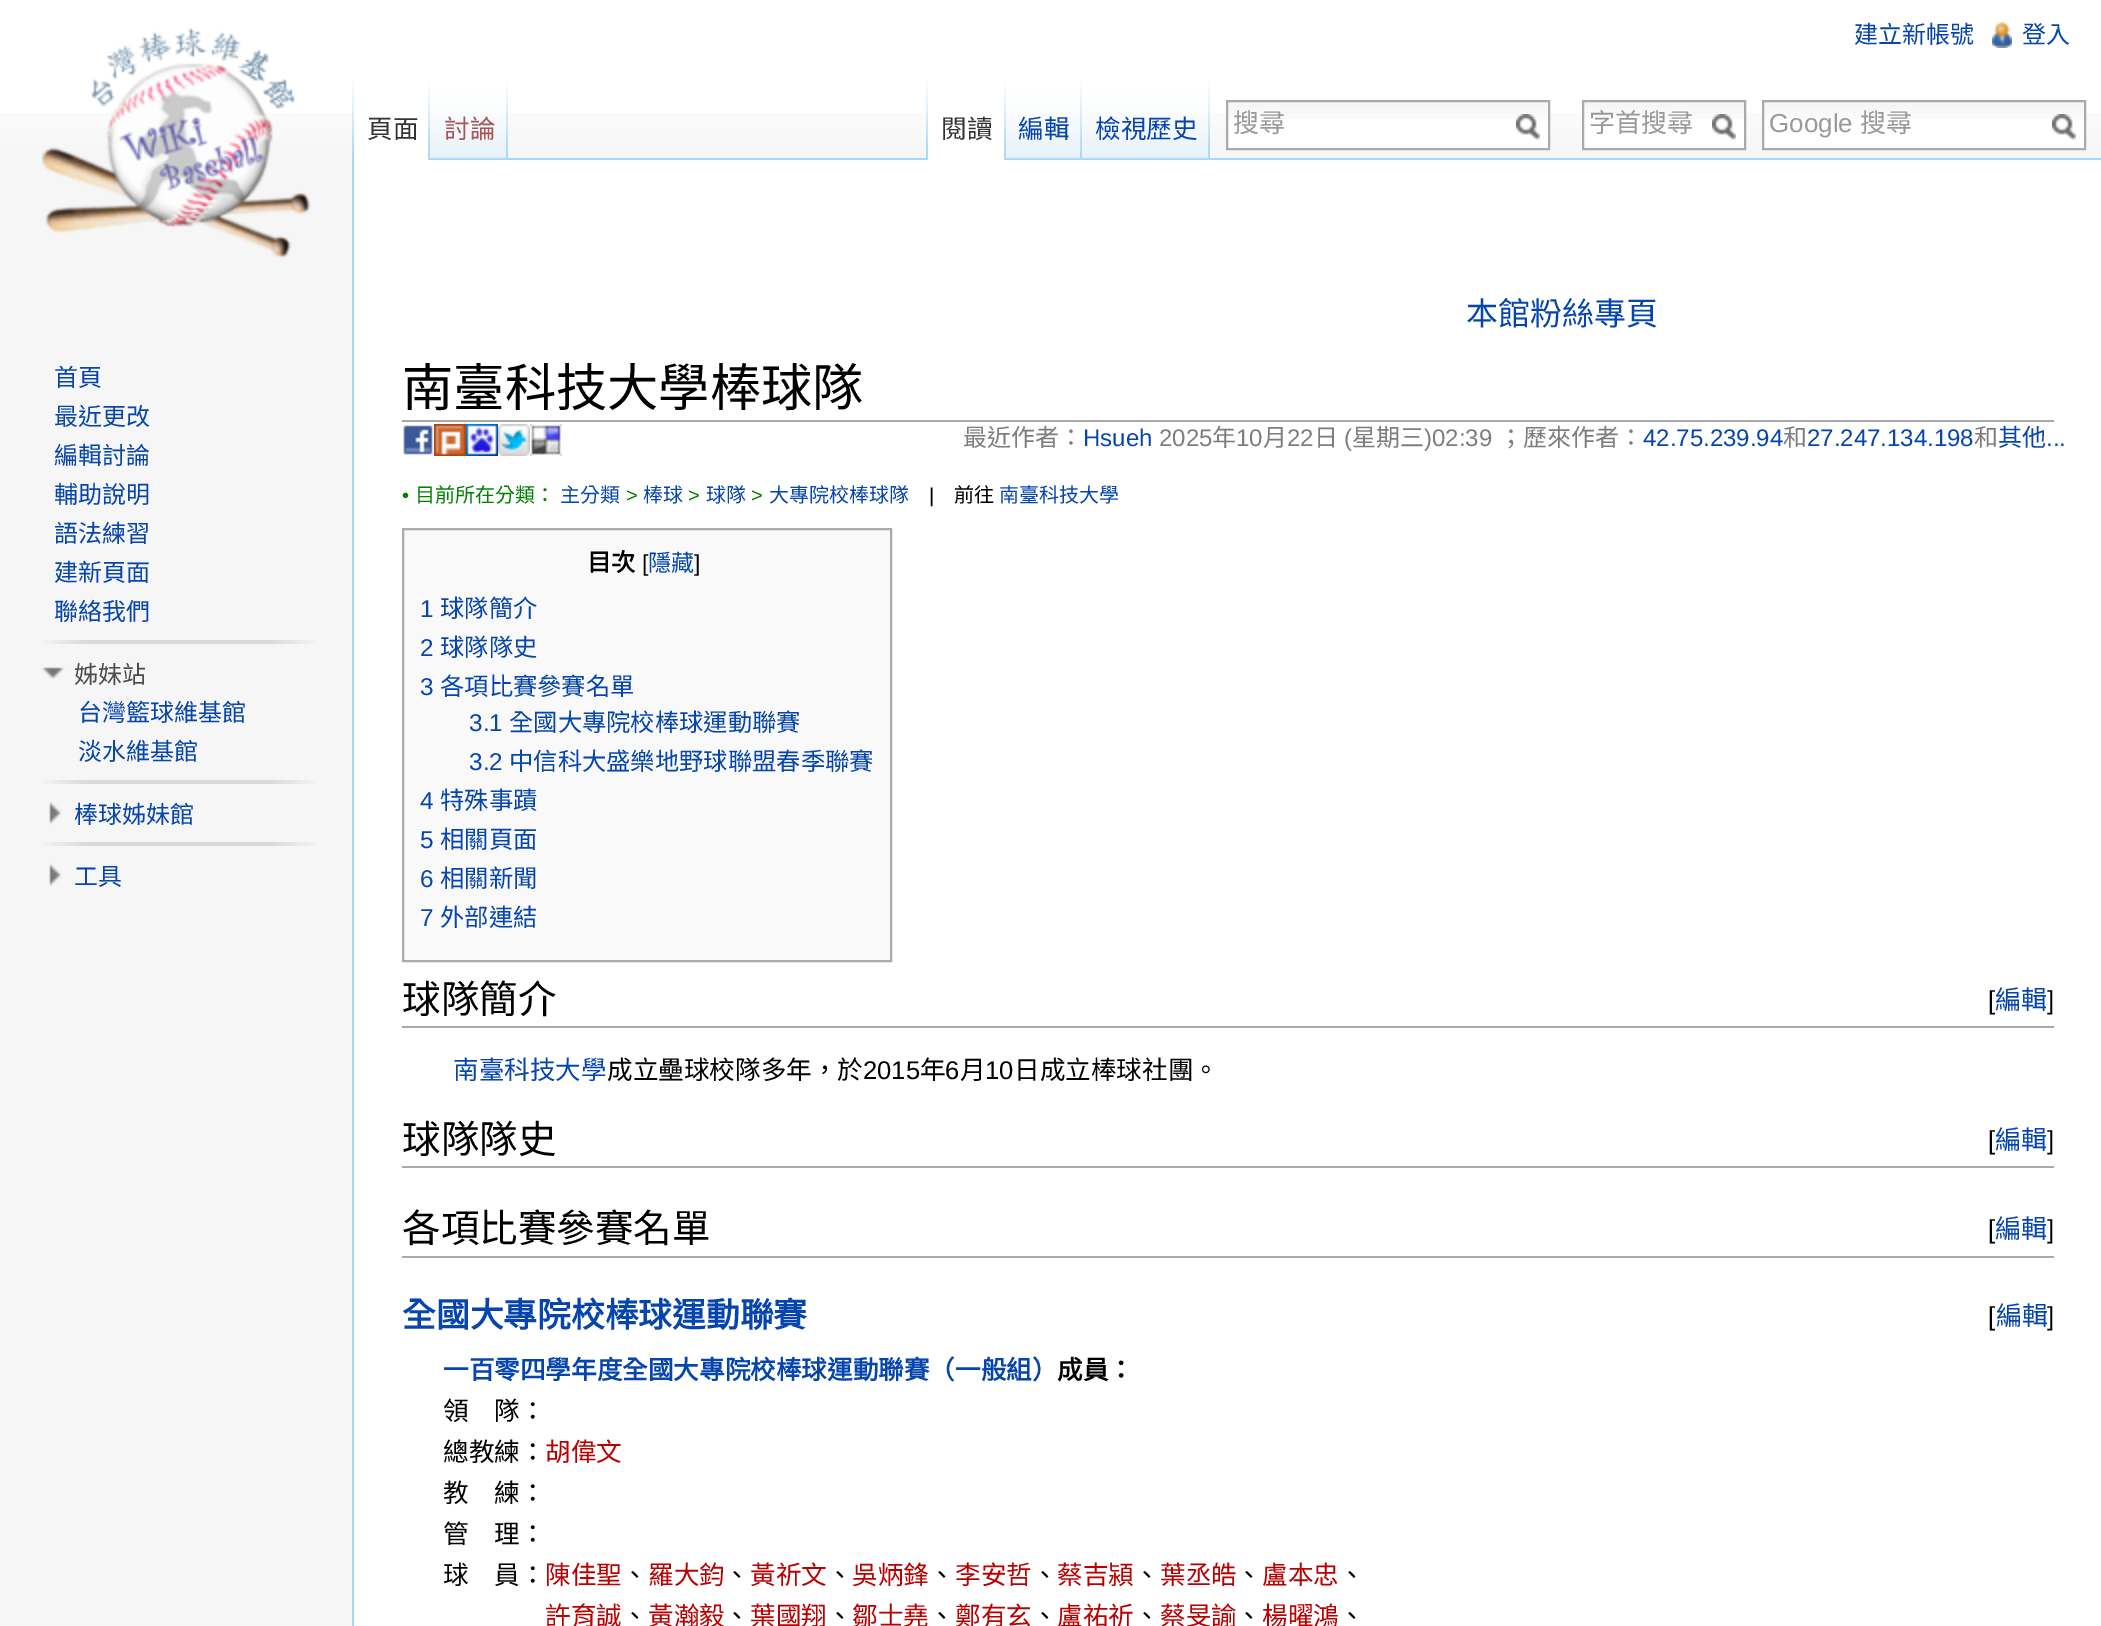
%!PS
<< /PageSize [2101 1626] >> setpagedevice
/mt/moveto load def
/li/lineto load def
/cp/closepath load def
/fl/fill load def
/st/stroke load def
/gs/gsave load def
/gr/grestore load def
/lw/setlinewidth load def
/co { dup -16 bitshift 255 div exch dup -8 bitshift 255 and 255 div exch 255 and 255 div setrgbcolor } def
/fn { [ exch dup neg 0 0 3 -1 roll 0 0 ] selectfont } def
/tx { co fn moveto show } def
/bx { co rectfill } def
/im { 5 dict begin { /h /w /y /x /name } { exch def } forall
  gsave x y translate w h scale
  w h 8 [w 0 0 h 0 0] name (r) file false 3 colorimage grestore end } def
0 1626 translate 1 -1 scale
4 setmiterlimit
0 0 2101 1626 16#F6F6F6 bx
0 0 2101 113 16#FFFFFF bx
(media/1.raw) 0 113 2101 47 im
(media/2.raw) 1992 22 20 26 im
(media/3.raw) 352 80 2 78 im
354 113 76 47 16#FFFFFF bx
(media/4.raw) 428 81 2 79 im
(media/5.raw) 430 80 78 80 im
(media/6.raw) 506 81 2 78 im
(media/3.raw) 926 80 2 78 im
508 158 1593 2 16#A7D7F9 bx
928 113 78 47 16#FFFFFF bx
(media/4.raw) 1004 81 2 79 im
(media/7.raw) 1006 80 76 80 im
(media/6.raw) 1080 81 2 78 im
(media/8.raw) 1082 80 128 80 im
(media/6.raw) 1208 81 2 78 im
1228 119 320 29 16#FFFFFF bx
(media/9.raw) 1228 102 320 17 im
16#AAAAAA co
2 lw
1227 101 322 48 rectstroke
(media/10.raw) 1516 114 24 26 im
1584 119 160 29 16#FFFFFF bx
(media/11.raw) 1584 102 160 17 im
16#AAAAAA co
1583 101 162 48 rectstroke
(media/10.raw) 1712 114 24 26 im
1764 119 320 29 16#FFFFFF bx
(media/9.raw) 1764 102 320 17 im
16#AAAAAA co
1763 101 322 48 rectstroke
(media/10.raw) 2052 114 24 26 im
(media/12.raw) 42 27 269 232 im
(media/13.raw) 43 640 272 4 im
(media/14.raw) 41 667 24 12 im
(media/13.raw) 43 780 272 4 im
(media/15.raw) 49 801 12 24 im
(media/13.raw) 43 842 272 4 im
(media/15.raw) 49 863 12 24 im
354 160 1747 1466 16#FFFFFF bx
352 158 2 1468 16#A7D7F9 bx
402 420 1652 2 16#AAAAAA bx
(media/16.raw) 403 425 30 30 im
(media/17.raw) 434 424 32 32 im
(media/18.raw) 466 424 32 32 im
(media/19.raw) 498 424 32 32 im
(media/20.raw) 530 424 32 32 im
16#F9F9F9 co
403 529 mt 891 529 li 891 961 li 403 961 li cp gs fl gr
16#AAAAAA co
st
402 1026 1652 2 16#AAAAAA bx
402 1166 1652 2 16#AAAAAA bx
402 1256 1652 2 16#AAAAAA bx
(建立新帳號) 1854 43 /NotoSansCJKTC-Regular 24 16#0645AD tx
(登入) 2022 43 /NotoSansCJKTC-Regular 24 16#0645AD tx
(頁面) 367 138 /NotoSansCJKTC-Regular 25.6 16#333333 tx
(討論) 444 138 /NotoSansCJKTC-Regular 25.6 16#A55858 tx
(閱讀) 941 138 /NotoSansCJKTC-Regular 25.6 16#333333 tx
(編輯) 1018 138 /NotoSansCJKTC-Regular 25.6 16#0645AD tx
(檢視歷史) 1095 138 /NotoSansCJKTC-Regular 25.6 16#0645AD tx
(搜尋) 1233 132 /NotoSansCJKTC-Regular 26 16#999999 tx
(字首搜尋) 1589 132 /NotoSansCJKTC-Regular 26 16#999999 tx
(Google) 1769 132 /LiberationSans-Regular 26 16#999999 tx
(搜尋) 1860 132 /NotoSansCJKTC-Regular 26 16#999999 tx
(首頁) 54 386 /NotoSansCJKTC-Regular 24 16#0645AD tx
(最近更改) 54 425 /NotoSansCJKTC-Regular 24 16#0645AD tx
(編輯討論) 54 464 /NotoSansCJKTC-Regular 24 16#0645AD tx
(輔助說明) 54 503 /NotoSansCJKTC-Regular 24 16#0645AD tx
(語法練習) 54 542 /NotoSansCJKTC-Regular 24 16#0645AD tx
(建新頁面) 54 581 /NotoSansCJKTC-Regular 24 16#0645AD tx
(聯絡我們) 54 620 /NotoSansCJKTC-Regular 24 16#0645AD tx
(姊妹站) 74 683 /NotoSansCJKTC-Regular 24 16#4D4D4D tx
(台灣籃球維基館) 78 721 /NotoSansCJKTC-Regular 24 16#0645AD tx
(淡水維基館) 78 760 /NotoSansCJKTC-Regular 24 16#0645AD tx
(棒球姊妹館) 74 823 /NotoSansCJKTC-Regular 24 16#0645AD tx
(工具) 74 885 /NotoSansCJKTC-Regular 24 16#0645AD tx
(本館粉絲專頁) 1466 325 /NotoSansCJKTC-Regular 32 16#0645AD tx
(南臺科技大學棒球隊) 402 406 /NotoSansCJKTC-Regular 51.25 16#000000 tx
(最近作者：) 963 446 /NotoSansCJKTC-Regular 24 16#7D7D7D tx
(Hsueh) 1083 446 /LiberationSans-Regular 24 16#0645AD tx
(2025) 1159 446 /LiberationSans-Regular 24 16#7D7D7D tx
(年) 1212 446 /NotoSansCJKTC-Regular 24 16#7D7D7D tx
(10) 1236 446 /LiberationSans-Regular 24 16#7D7D7D tx
(月) 1263 446 /NotoSansCJKTC-Regular 24 16#7D7D7D tx
(22) 1287 446 /LiberationSans-Regular 24 16#7D7D7D tx
(日) 1314 446 /NotoSansCJKTC-Regular 24 16#7D7D7D tx
(\() 1344 446 /LiberationSans-Regular 24 16#7D7D7D tx
(星期三) 1352 446 /NotoSansCJKTC-Regular 24 16#7D7D7D tx
(\)02:39) 1424 446 /LiberationSans-Regular 24 16#7D7D7D tx
(；歷來作者：) 1499 446 /NotoSansCJKTC-Regular 24 16#7D7D7D tx
(42.75.239.94) 1643 446 /LiberationSans-Regular 24 16#0645AD tx
(和) 1783 446 /NotoSansCJKTC-Regular 24 16#7D7D7D tx
(27.247.134.198) 1807 446 /LiberationSans-Regular 24 16#0645AD tx
(和) 1974 446 /NotoSansCJKTC-Regular 24 16#7D7D7D tx
(其他) 1998 446 /NotoSansCJKTC-Regular 24 16#0645AD tx
(...) 2046 446 /LiberationSans-Regular 24 16#0645AD tx
(•) 402 502 /LiberationSans-Regular 20 16#008000 tx
(目前所在分類：) 415 502 /NotoSansCJKTC-Regular 20 16#008000 tx
(主分類) 560 502 /NotoSansCJKTC-Regular 20 16#0645AD tx
(>) 626 502 /LiberationSans-Regular 20 16#008000 tx
(棒球) 643 502 /NotoSansCJKTC-Regular 20 16#0645AD tx
(>) 688 502 /LiberationSans-Regular 20 16#008000 tx
(球隊) 706 502 /NotoSansCJKTC-Regular 20 16#0645AD tx
(>) 751 502 /LiberationSans-Regular 20 16#008000 tx
(大專院校棒球隊) 769 502 /NotoSansCJKTC-Regular 20 16#0645AD tx
(|) 929 502 /LiberationSans-Regular 20 16#000000 tx
(前往) 954 502 /NotoSansCJKTC-Regular 20 16#000000 tx
(南臺科技大學) 999 502 /NotoSansCJKTC-Regular 20 16#0645AD tx
(目次) 587 571 /NotoSansCJKTC-Bold 24.3 16#000000 tx
([) 642 571 /LiberationSans-Regular 23 16#000000 tx
(隱藏) 648 571 /NotoSansCJKTC-Regular 23 16#0645AD tx
(]) 694 571 /LiberationSans-Regular 23 16#000000 tx
(1) 420 617 /LiberationSans-Regular 24.3 16#0645AD tx
(球隊簡介) 440 617 /NotoSansCJKTC-Regular 24.3 16#0645AD tx
(2) 420 656 /LiberationSans-Regular 24.3 16#0645AD tx
(球隊隊史) 440 656 /NotoSansCJKTC-Regular 24.3 16#0645AD tx
(3) 420 695 /LiberationSans-Regular 24.3 16#0645AD tx
(各項比賽參賽名單) 440 695 /NotoSansCJKTC-Regular 24.3 16#0645AD tx
(3.1) 469 731 /LiberationSans-Regular 24.3 16#0645AD tx
(全國大專院校棒球運動聯賽) 509 731 /NotoSansCJKTC-Regular 24.3 16#0645AD tx
(3.2) 469 770 /LiberationSans-Regular 24.3 16#0645AD tx
(中信科大盛樂地野球聯盟春季聯賽) 509 770 /NotoSansCJKTC-Regular 24.3 16#0645AD tx
(4) 420 809 /LiberationSans-Regular 24.3 16#0645AD tx
(特殊事蹟) 440 809 /NotoSansCJKTC-Regular 24.3 16#0645AD tx
(5) 420 848 /LiberationSans-Regular 24.3 16#0645AD tx
(相關頁面) 440 848 /NotoSansCJKTC-Regular 24.3 16#0645AD tx
(6) 420 887 /LiberationSans-Regular 24.3 16#0645AD tx
(相關新聞) 440 887 /NotoSansCJKTC-Regular 24.3 16#0645AD tx
(7) 420 926 /LiberationSans-Regular 24.3 16#0645AD tx
(外部連結) 440 926 /NotoSansCJKTC-Regular 24.3 16#0645AD tx
(球隊簡介) 402 1013 /NotoSansCJKTC-Regular 38.5 16#000000 tx
([) 1988 1009 /LiberationSans-Regular 26 16#000000 tx
(編輯) 1995 1009 /NotoSansCJKTC-Regular 26 16#0645AD tx
(]) 2047 1009 /LiberationSans-Regular 26 16#000000 tx
(南臺科技大學) 453 1079 /NotoSansCJKTC-Regular 25.6 16#0645AD tx
(成立壘球校隊多年，於) 607 1079 /NotoSansCJKTC-Regular 25.6 16#000000 tx
(2015) 863 1079 /LiberationSans-Regular 25.6 16#000000 tx
(年) 920 1079 /NotoSansCJKTC-Regular 25.6 16#000000 tx
(6) 945 1079 /LiberationSans-Regular 25.6 16#000000 tx
(月) 960 1079 /NotoSansCJKTC-Regular 25.6 16#000000 tx
(10) 985 1079 /LiberationSans-Regular 25.6 16#000000 tx
(日成立棒球社團。) 1014 1079 /NotoSansCJKTC-Regular 25.6 16#000000 tx
(球隊隊史) 402 1153 /NotoSansCJKTC-Regular 38.5 16#000000 tx
([) 1988 1149 /LiberationSans-Regular 26 16#000000 tx
(編輯) 1995 1149 /NotoSansCJKTC-Regular 26 16#0645AD tx
(]) 2047 1149 /LiberationSans-Regular 26 16#000000 tx
(各項比賽參賽名單) 402 1242 /NotoSansCJKTC-Regular 38.5 16#000000 tx
([) 1988 1238 /LiberationSans-Regular 26 16#000000 tx
(編輯) 1995 1238 /NotoSansCJKTC-Regular 26 16#0645AD tx
(]) 2047 1238 /LiberationSans-Regular 26 16#000000 tx
(全國大專院校棒球運動聯賽) 402 1327 /NotoSansCJKTC-Bold 33.75 16#0645AD tx
([) 1988 1325 /LiberationSans-Regular 26 16#000000 tx
(編輯) 1996 1325 /NotoSansCJKTC-Regular 26 16#0645AD tx
(]) 2047 1325 /LiberationSans-Regular 26 16#000000 tx
(一百零四學年度全國大專院校棒球運動聯賽（一般組）) 443 1379 /NotoSansCJKTC-Bold 25.6 16#0645AD tx
(成員：) 1057 1379 /NotoSansCJKTC-Bold 25.6 16#000000 tx
(領　隊：) 443 1420 /NotoSansCJKTC-Regular 25.6 16#000000 tx
(總教練：) 443 1461 /NotoSansCJKTC-Regular 25.6 16#000000 tx
(胡偉文) 545 1461 /NotoSansCJKTC-Regular 25.6 16#BA0000 tx
(教　練：) 443 1502 /NotoSansCJKTC-Regular 25.6 16#000000 tx
(管　理：) 443 1543 /NotoSansCJKTC-Regular 25.6 16#000000 tx
(球　員：) 443 1584 /NotoSansCJKTC-Regular 25.6 16#000000 tx
(陳佳聖) 545 1584 /NotoSansCJKTC-Regular 25.6 16#BA0000 tx
(、) 622 1584 /NotoSansCJKTC-Regular 25.6 16#000000 tx
(羅大鈞) 648 1584 /NotoSansCJKTC-Regular 25.6 16#BA0000 tx
(、) 724 1584 /NotoSansCJKTC-Regular 25.6 16#000000 tx
(黃祈文) 750 1584 /NotoSansCJKTC-Regular 25.6 16#BA0000 tx
(、) 827 1584 /NotoSansCJKTC-Regular 25.6 16#000000 tx
(吳炳鋒) 852 1584 /NotoSansCJKTC-Regular 25.6 16#BA0000 tx
(、) 929 1584 /NotoSansCJKTC-Regular 25.6 16#000000 tx
(李安哲) 955 1584 /NotoSansCJKTC-Regular 25.6 16#BA0000 tx
(、) 1032 1584 /NotoSansCJKTC-Regular 25.6 16#000000 tx
(蔡吉潁) 1057 1584 /NotoSansCJKTC-Regular 25.6 16#BA0000 tx
(、) 1134 1584 /NotoSansCJKTC-Regular 25.6 16#000000 tx
(葉丞皓) 1160 1584 /NotoSansCJKTC-Regular 25.6 16#BA0000 tx
(、) 1236 1584 /NotoSansCJKTC-Regular 25.6 16#000000 tx
(盧本忠) 1262 1584 /NotoSansCJKTC-Regular 25.6 16#BA0000 tx
(、) 1339 1584 /NotoSansCJKTC-Regular 25.6 16#000000 tx
(許育誠) 545 1625 /NotoSansCJKTC-Regular 25.6 16#BA0000 tx
(、) 622 1625 /NotoSansCJKTC-Regular 25.6 16#000000 tx
(黃瀚毅) 648 1625 /NotoSansCJKTC-Regular 25.6 16#BA0000 tx
(、) 724 1625 /NotoSansCJKTC-Regular 25.6 16#000000 tx
(葉國翔) 750 1625 /NotoSansCJKTC-Regular 25.6 16#BA0000 tx
(、) 827 1625 /NotoSansCJKTC-Regular 25.6 16#000000 tx
(鄒士堯) 852 1625 /NotoSansCJKTC-Regular 25.6 16#BA0000 tx
(、) 929 1625 /NotoSansCJKTC-Regular 25.6 16#000000 tx
(鄭有玄) 955 1625 /NotoSansCJKTC-Regular 25.6 16#BA0000 tx
(、) 1032 1625 /NotoSansCJKTC-Regular 25.6 16#000000 tx
(盧祐祈) 1057 1625 /NotoSansCJKTC-Regular 25.6 16#BA0000 tx
(、) 1134 1625 /NotoSansCJKTC-Regular 25.6 16#000000 tx
(蔡旻諭) 1160 1625 /NotoSansCJKTC-Regular 25.6 16#BA0000 tx
(、) 1236 1625 /NotoSansCJKTC-Regular 25.6 16#000000 tx
(楊曜鴻) 1262 1625 /NotoSansCJKTC-Regular 25.6 16#BA0000 tx
(、) 1339 1625 /NotoSansCJKTC-Regular 25.6 16#000000 tx
showpage
